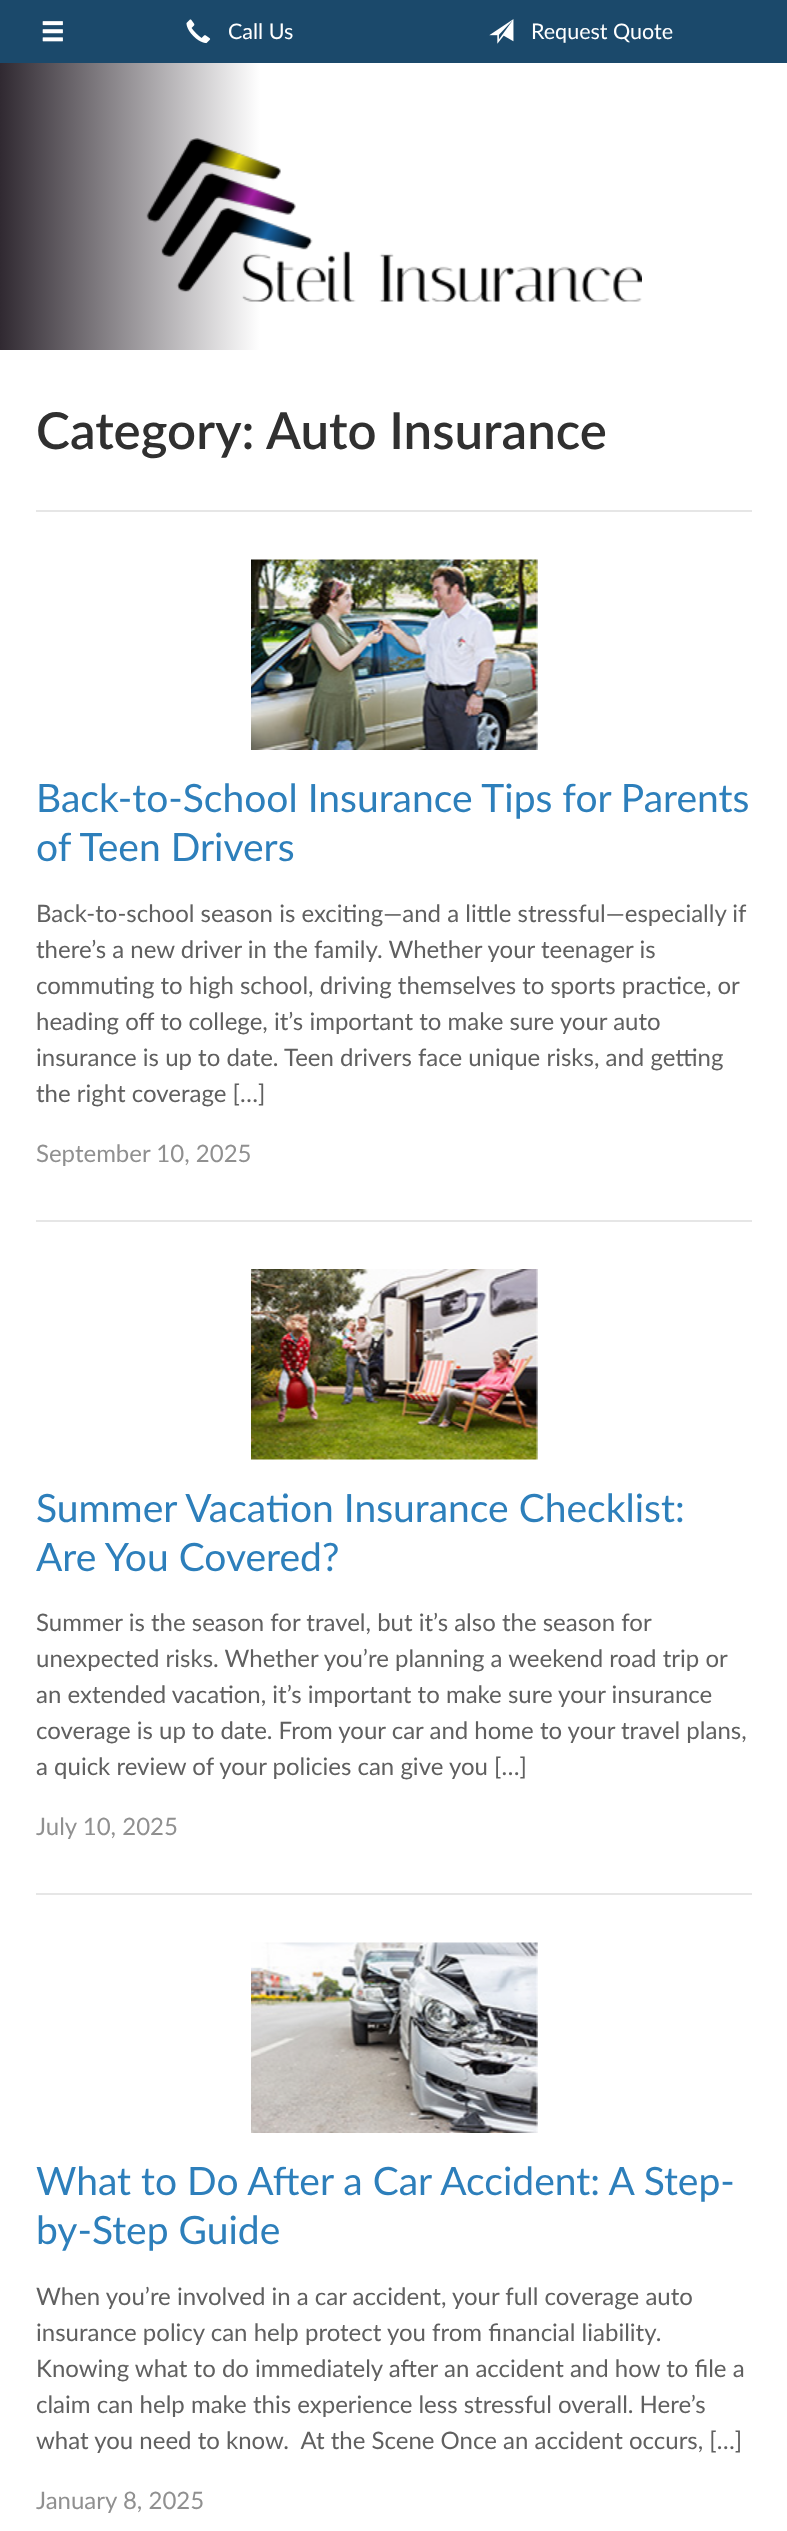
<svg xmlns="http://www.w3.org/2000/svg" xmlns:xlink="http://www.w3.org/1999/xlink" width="787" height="2531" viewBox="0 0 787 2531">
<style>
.cls-1{font:21.5px Lato;fill:#ffffff}
.cls-2{font:600 51px Lato;fill:#303030}
.cls-3{font:39px Lato;fill:#2d7fbb}
.cls-4{font:24px Lato;fill:#606060}
.cls-5{font:24px Lato;fill:#909090}
</style>
<defs>
<linearGradient id="g1" gradientUnits="userSpaceOnUse" x1="0" y1="206" x2="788" y2="206"><stop offset="0" stop-color="#302931"/><stop offset="0.33" stop-color="#ffffff"/><stop offset="1" stop-color="#ffffff"/></linearGradient>
</defs>
<rect width="100%" height="100%" fill="#1b496b"/>
<image xlink:href="image0.png" x="42" y="21" width="21" height="21"/>
<image xlink:href="image1.png" x="186" y="19" width="25" height="25"/>
<image xlink:href="image2.png" x="489" y="19" width="25" height="25"/>
<rect fill="url(#g1)" x="0" y="63" width="787" height="287"/>
<image xlink:href="image3.png" x="146" y="138" width="496" height="164"/>
<rect fill="#ffffff" x="0" y="350" width="787" height="2181"/>
<rect fill="#e6e6e6" x="36" y="510" width="716" height="2"/>
<rect fill="#e6e6e6" x="36" y="1220" width="716" height="2"/>
<image xlink:href="image4.png" x="251" y="559" width="287" height="191"/>
<rect fill="#e6e6e6" x="36" y="1893" width="716" height="2"/>
<image xlink:href="image5.png" x="251" y="1269" width="287" height="191"/>
<image xlink:href="image6.png" x="251" y="1942" width="287" height="191"/>
<text class="cls-1" x="228" y="39">Call Us</text>
<text class="cls-1" x="531" y="39">Request Quote</text>
<text class="cls-2" x="36" y="449">Category:</text>
<text class="cls-2" x="266" y="449">Auto Insurance</text>
<text class="cls-3"><tspan x="36" y="812">Back-to-School Insurance Tips for Parents</tspan><tspan x="36" y="861">of Teen Drivers</tspan></text>
<text class="cls-4"><tspan x="36" y="922">Back-to-school season is exciting—and a little stressful—especially if</tspan><tspan x="36" y="958">there’s a new driver in the family. Whether your teenager is</tspan><tspan x="36" y="994">commuting to high school, driving themselves to sports practice, or</tspan><tspan x="36" y="1030">heading off to college, it’s important to make sure your auto</tspan><tspan x="36" y="1066">insurance is up to date. Teen drivers face unique risks, and getting</tspan><tspan x="36" y="1102">the right coverage […]</tspan></text>
<text class="cls-5" x="36" y="1162">September 10, 2025</text>
<text class="cls-3"><tspan x="36" y="1522">Summer Vacation Insurance Checklist:</tspan><tspan x="36" y="1571">Are You Covered?</tspan></text>
<text class="cls-4"><tspan x="36" y="1631">Summer is the season for travel, but it’s also the season for</tspan><tspan x="36" y="1667">unexpected risks. Whether you’re planning a weekend road trip or</tspan><tspan x="36" y="1703">an extended vacation, it’s important to make sure your insurance</tspan><tspan x="36" y="1739">coverage is up to date. From your car and home to your travel plans,</tspan><tspan x="36" y="1775">a quick review of your policies can give you […]</tspan></text>
<text class="cls-5" x="36" y="1835">July 10, 2025</text>
<text class="cls-3"><tspan x="36" y="2195">What to Do After a Car Accident: A Step-</tspan><tspan x="36" y="2244">by-Step Guide</tspan></text>
<text class="cls-4" xml:space="preserve"><tspan x="36" y="2305">When you’re involved in a car accident, your full coverage auto</tspan><tspan x="36" y="2341">insurance policy can help protect you from financial liability.</tspan><tspan x="36" y="2377">Knowing what to do immediately after an accident and how to file a</tspan><tspan x="36" y="2413">claim can help make this experience less stressful overall. Here’s</tspan><tspan x="36" y="2449">what you need to know.  At the Scene Once an accident occurs, […]</tspan></text>
<text class="cls-5" x="36" y="2509">January 8, 2025</text>
</svg>
